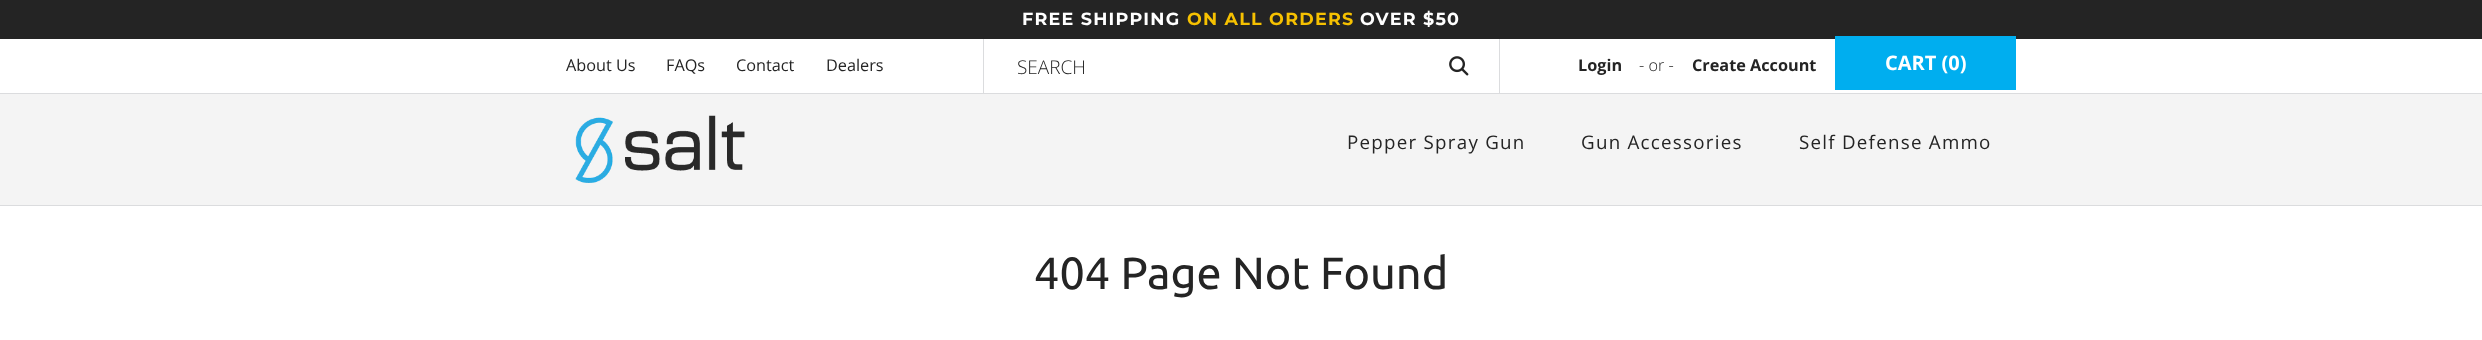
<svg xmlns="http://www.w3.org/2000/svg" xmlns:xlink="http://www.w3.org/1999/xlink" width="2482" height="340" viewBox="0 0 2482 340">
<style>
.cls-1{font:bold 17.5px Montserrat;letter-spacing:1.25px;fill:#ffffff}
.cls-2{font:bold 17.5px Montserrat;letter-spacing:1.25px;fill:#f6c101}
.cls-3{font:16.25px Open Sans;fill:#242424}
.cls-4{font:300 19px Open Sans;fill:#242424}
.cls-5{font:bold 16.25px Open Sans;fill:#242424}
.cls-6{font:300 16.25px Open Sans;fill:#242424}
.cls-7{font:bold 20px Open Sans;fill:#ffffff}
.cls-8{font:18.75px Open Sans;letter-spacing:1.25px;fill:#242424}
.cls-9{font:45px Ubuntu;fill:#242424}
</style>
<rect width="100%" height="100%" fill="#ffffff"/>
<rect fill="#f4f4f4" x="0" y="94" width="2482" height="111"/>
<rect fill="#242424" x="0" y="0" width="2482" height="39"/>
<rect fill="#dbdcde" x="0" y="93" width="2482" height="1"/>
<rect fill="#dbdcde" x="1499" y="39" width="1" height="54"/>
<rect fill="#dbdcde" x="983" y="39" width="1" height="54"/>
<image xlink:href="image0.png" x="1449" y="56" width="20" height="20"/>
<rect fill="#00aeef" x="1835" y="36" width="181" height="54"/>
<rect fill="#dbdcde" x="0" y="205" width="2482" height="1"/>
<image xlink:href="image1.png" x="575" y="115" width="170" height="68"/>
<text class="cls-1" x="1022" y="25">FREE SHIPPING</text>
<text class="cls-2" x="1187" y="25">ON ALL ORDERS</text>
<text class="cls-1" x="1360" y="25">OVER $50</text>
<text class="cls-3" x="566" y="71">About Us</text>
<text class="cls-3" x="666" y="71">FAQs</text>
<text class="cls-3" x="736" y="71">Contact</text>
<text class="cls-3" x="826" y="71">Dealers</text>
<text class="cls-4" x="1017" y="74">SEARCH</text>
<text class="cls-5" x="1578" y="71">Login</text>
<text class="cls-6" x="1639" y="71">- or -</text>
<text class="cls-5" x="1692" y="71">Create Account</text>
<text class="cls-7" x="1885" y="70">CART (0)</text>
<text class="cls-8" x="1347" y="149">Pepper Spray Gun</text>
<text class="cls-8" x="1581" y="149">Gun Accessories</text>
<text class="cls-8" x="1799" y="149">Self Defense Ammo</text>
<text class="cls-9" x="1034" y="289">404 Page Not Found</text>
</svg>
